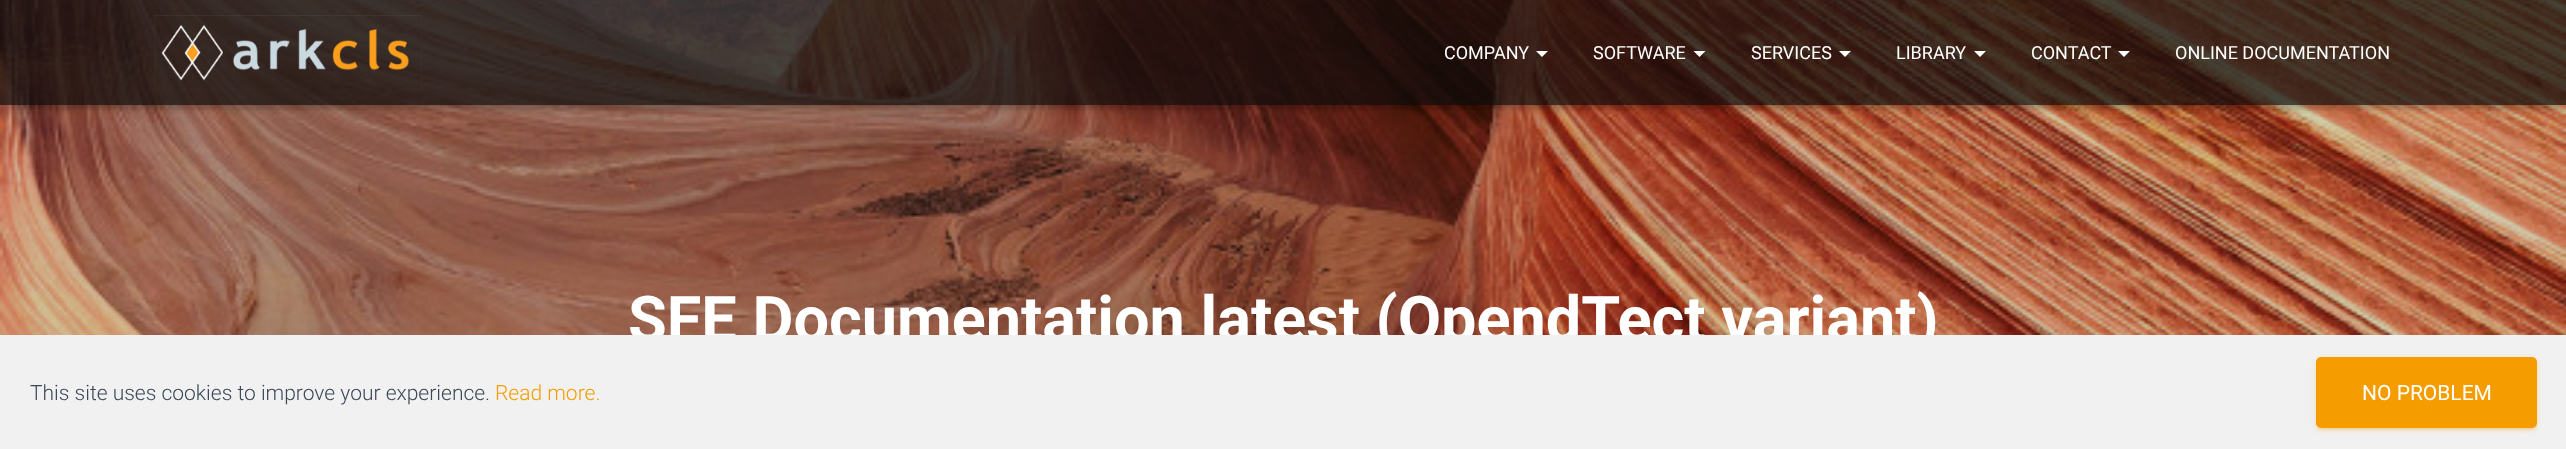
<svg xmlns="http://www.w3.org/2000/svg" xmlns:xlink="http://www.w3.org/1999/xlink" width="2566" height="449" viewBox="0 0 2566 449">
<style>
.cls-1{font:18px Roboto;fill:#ffffff}
.cls-2{font:bold 63px Roboto;fill:#ffffff}
.cls-3{font:300 21px Roboto;fill:#3c4858}
.cls-4{font:300 21px Roboto;fill:#f59c00}
.cls-5{font:21px Roboto;fill:#ffffff}
</style>
<defs>
<clipPath id="clip1"><rect x="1" y="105" width="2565" height="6"/></clipPath>
<clipPath id="clip2"><rect x="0" y="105" width="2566" height="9"/></clipPath>
<clipPath id="clip3"><rect x="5" y="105" width="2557" height="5"/></clipPath>
</defs>
<rect width="100%" height="100%" fill="#ffffff"/>
<image xlink:href="image1.png" x="0" y="0" width="2566" height="335"/>
<g clip-path="url(#clip1)">
<rect fill="#000000" fill-opacity="0.1" filter="blur(4px)" x="3" y="9" width="2561" height="99"/>
</g>
<g clip-path="url(#clip2)">
<rect fill="#000000" fill-opacity="0.12" filter="blur(7.5px)" x="0" y="2" width="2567" height="105"/>
</g>
<g clip-path="url(#clip3)">
<rect fill="#000000" fill-opacity="0.42" filter="blur(7.5px)" x="9" y="11" width="2549" height="87"/>
</g>
<rect fill="#0a0a0a" fill-opacity="0.7" x="0" y="0" width="2566" height="105"/>
<image xlink:href="image0.png" x="154" y="15" width="268" height="75"/>
<path fill="#ffffff" d="M1536 51H1548L1542 57Z"/>
<path fill="#ffffff" d="M1693.5 51H1705.5L1699.5 57Z"/>
<path fill="#ffffff" d="M1839 51H1851L1845 57Z"/>
<path fill="#ffffff" d="M1974 51H1986L1980 57Z"/>
<path fill="#ffffff" d="M2118 51H2130L2124 57Z"/>
<text class="cls-1" x="1444" y="59">COMPANY</text>
<text class="cls-1" x="1593" y="59">SOFTWARE</text>
<text class="cls-1" x="1751" y="59">SERVICES</text>
<text class="cls-1" x="1896" y="59">LIBRARY</text>
<text class="cls-1" x="2031" y="59">CONTACT</text>
<text class="cls-1" x="2175" y="59">ONLINE DOCUMENTATION</text>
<text class="cls-2" x="628" y="341">SFE Documentation latest (OpendTect variant)</text>
<rect fill="#f1f1f1" x="0" y="335" width="2566" height="114"/>
<text class="cls-3" x="30" y="400">This site uses cookies to improve your experience.</text>
<text class="cls-4" x="495" y="400">Read more.</text>
<rect fill="#f59c00" fill-opacity="0.12" filter="blur(4px)" x="2316" y="359" width="221" height="70" rx="5"/>
<rect fill="#f59c00" fill-opacity="0.2" filter="blur(1px)" x="2319" y="365" width="215" height="64" rx="1.5"/>
<rect fill="#f59c00" fill-opacity="0.14" filter="blur(1.5px)" x="2316" y="360" width="221" height="71" rx="5"/>
<rect fill="#f59c00" x="2316" y="357" width="221" height="71" rx="5"/>
<text class="cls-5" x="2362" y="400">NO PROBLEM</text>
</svg>
